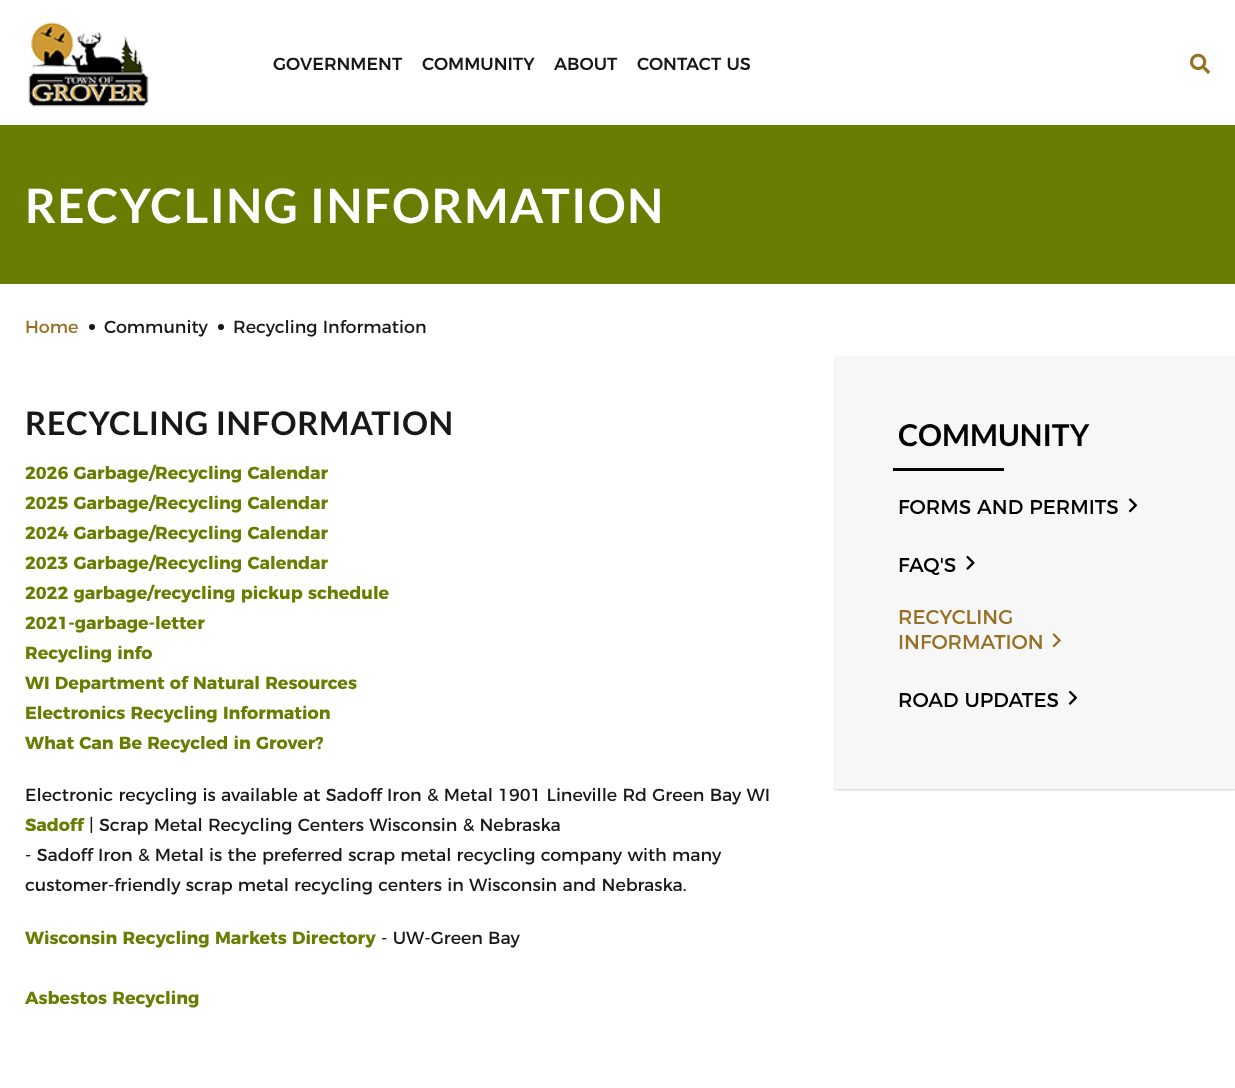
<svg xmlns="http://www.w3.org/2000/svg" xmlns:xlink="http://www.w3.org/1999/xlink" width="1235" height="1088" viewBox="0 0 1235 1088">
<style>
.cls-1{font:500 17.5px Montserrat;fill:#181818}
.cls-2{font:bold 47.5px Lato;letter-spacing:1.5px;fill:#ffffff}
.cls-3{font:17.5px Montserrat;fill:#977025}
.cls-4{font:17.5px Montserrat;fill:#181818}
.cls-5{font:bold 32.5px Lato;letter-spacing:0.6px;fill:#181818}
.cls-6{font:bold 17.5px Montserrat;fill:#697d02}
.cls-7{font:bold 30px Lato;fill:#000000}
.cls-8{font:20px Montserrat;fill:#000000}
.cls-9{font:20px Montserrat;fill:#977025}
</style>
<rect width="100%" height="100%" fill="#ffffff"/>
<image xlink:href="image0.png" x="28" y="22" width="121" height="85"/>
<image xlink:href="image1.png" x="1190" y="53" width="20" height="21"/>
<rect fill="#697d02" x="0" y="125" width="1235" height="159"/>
<circle fill="#181818" cx="92" cy="327" r="3"/>
<circle fill="#181818" cx="221" cy="327" r="3"/>
<rect fill="#000000" fill-opacity="0.2" filter="blur(1px)" x="835" y="358" width="400" height="432"/>
<rect fill="#f7f7f7" x="835" y="356" width="400" height="433"/>
<rect fill="#000000" x="893" y="468" width="111" height="3"/>
<image xlink:href="image2.png" x="1128" y="498" width="10" height="15"/>
<image xlink:href="image3.png" x="966" y="555" width="9" height="15"/>
<image xlink:href="image4.png" x="1052" y="633" width="9" height="15"/>
<image xlink:href="image5.png" x="1068" y="690" width="10" height="15"/>
<text class="cls-1" x="273" y="70">GOVERNMENT</text>
<text class="cls-1" x="422" y="70">COMMUNITY</text>
<text class="cls-1" x="554" y="70">ABOUT</text>
<text class="cls-1" x="637" y="70">CONTACT US</text>
<text class="cls-2" x="25" y="223">RECYCLING INFORMATION</text>
<text class="cls-3" x="25" y="333">Home</text>
<text class="cls-4" x="104" y="333">Community</text>
<text class="cls-4" x="233" y="333">Recycling Information</text>
<text class="cls-5" x="25" y="435">RECYCLING INFORMATION</text>
<text class="cls-6"><tspan x="25" y="479">2026 Garbage/Recycling Calendar</tspan><tspan x="25" y="509">2025 Garbage/Recycling Calendar</tspan><tspan x="25" y="539">2024 Garbage/Recycling Calendar</tspan><tspan x="25" y="569">2023 Garbage/Recycling Calendar</tspan><tspan x="25" y="599">2022 garbage/recycling pickup schedule</tspan><tspan x="25" y="629">2021-garbage-letter</tspan><tspan x="25" y="659">Recycling info</tspan><tspan x="25" y="689">WI Department of Natural Resources</tspan><tspan x="25" y="719">Electronics Recycling Information</tspan><tspan x="25" y="749">What Can Be Recycled in Grover?</tspan></text>
<text class="cls-4" x="25" y="801">Electronic recycling is available at Sadoff Iron &amp; Metal 1901 Lineville Rd Green Bay WI</text>
<text class="cls-6" x="25" y="831">Sadoff</text>
<text class="cls-4" x="89" y="831">| Scrap Metal Recycling Centers Wisconsin &amp; Nebraska</text>
<text class="cls-4"><tspan x="25" y="861">- Sadoff Iron &amp; Metal is the preferred scrap metal recycling company with many</tspan><tspan x="25" y="891">customer-friendly scrap metal recycling centers in Wisconsin and Nebraska.</tspan></text>
<text class="cls-6" x="25" y="944">Wisconsin Recycling Markets Directory</text>
<text class="cls-4" x="381" y="944">- UW-Green Bay</text>
<text class="cls-6" x="25" y="1004">Asbestos Recycling</text>
<text class="cls-7" x="898" y="446">COMMUNITY</text>
<text class="cls-8" x="898" y="514">FORMS AND PERMITS</text>
<text class="cls-8" x="898" y="572">FAQ'S</text>
<text class="cls-9"><tspan x="898" y="624">RECYCLING</tspan><tspan x="898" y="649">INFORMATION</tspan></text>
<text class="cls-8" x="898" y="707">ROAD UPDATES</text>
</svg>
